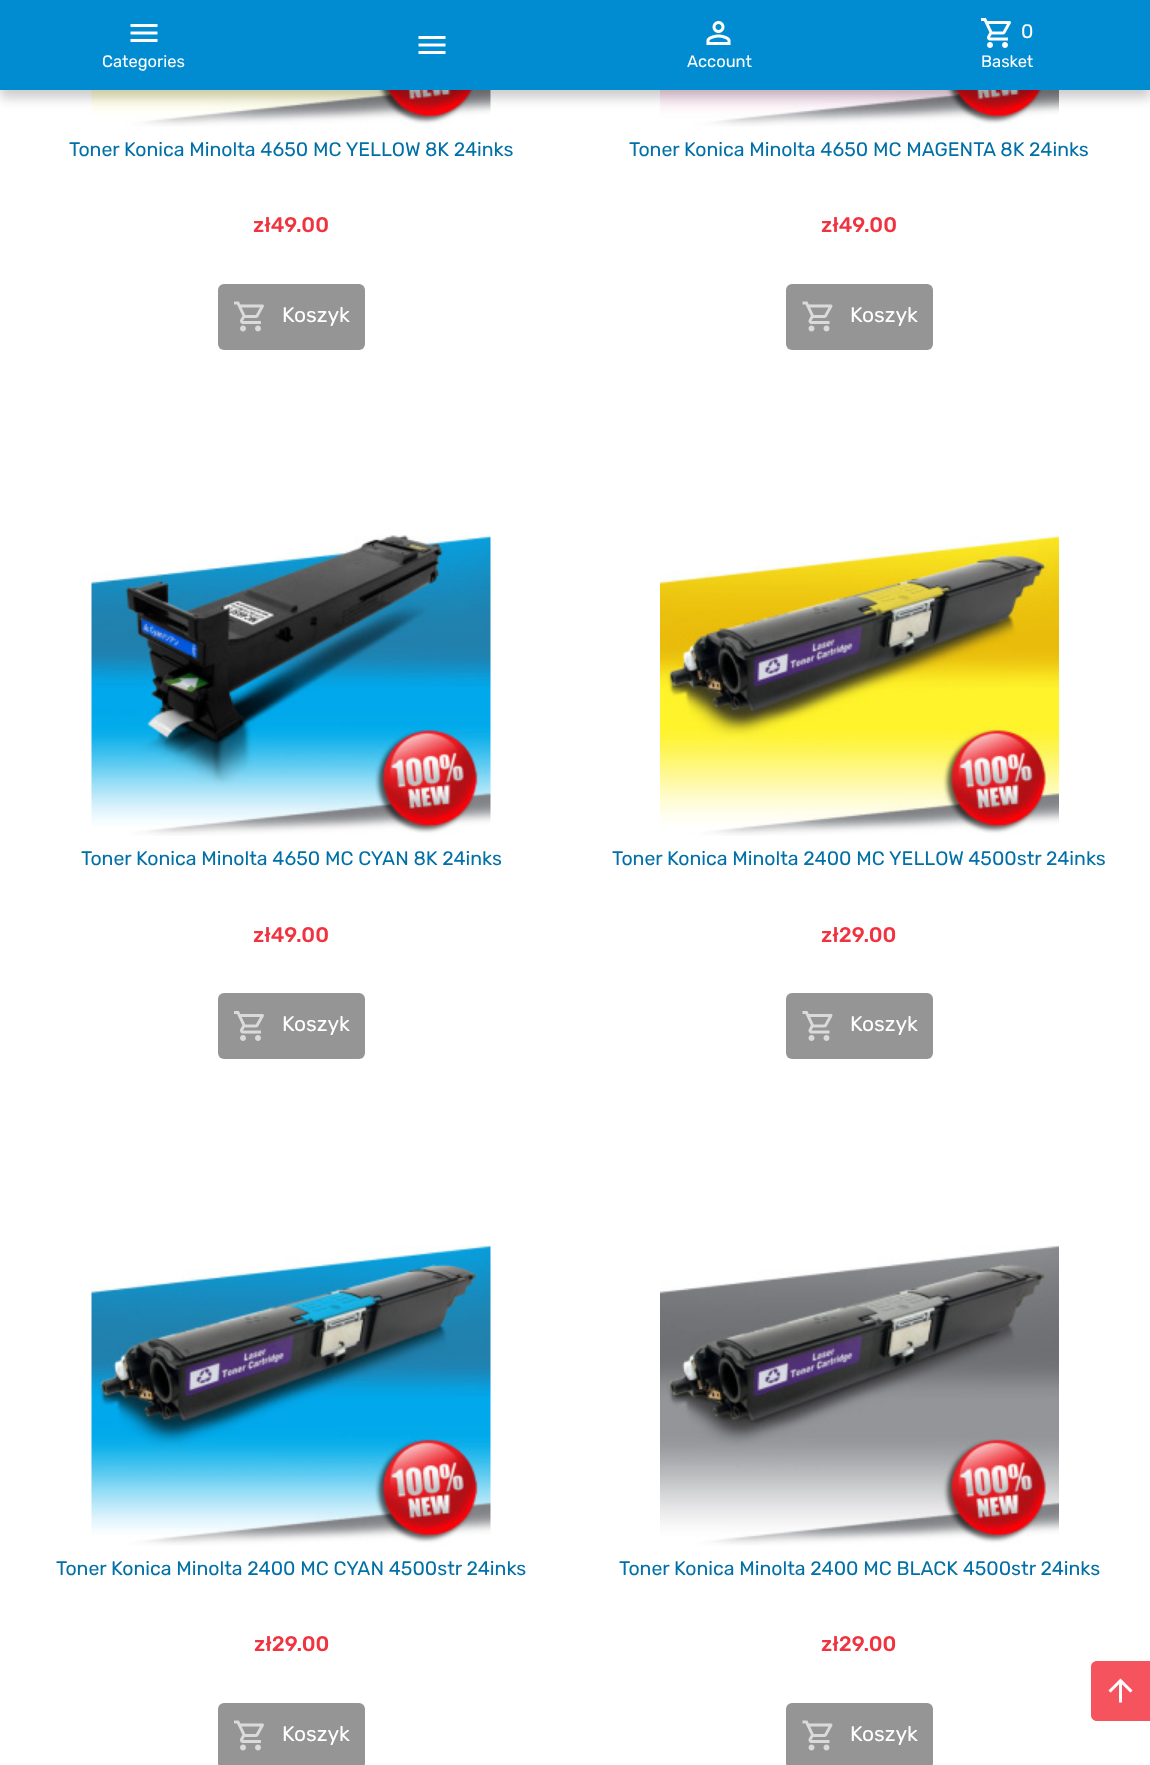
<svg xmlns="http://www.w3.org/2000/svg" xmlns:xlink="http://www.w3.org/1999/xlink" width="1150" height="1765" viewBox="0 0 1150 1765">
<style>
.cls-1{font:19.5px Rubik;fill:#ffffff}
.cls-2{font:16.5px Rubik;fill:#ffffff}
.cls-3{font:19.5px Rubik;fill:#0170a7}
.cls-4{font:500 21px Rubik;fill:#f13340}
.cls-5{font:21px Rubik;fill:#ffffff}
</style>
<rect width="100%" height="100%" fill="#ffffff"/>
<image xlink:href="image3.png" x="91" y="90" width="400" height="37"/>
<image xlink:href="image5.png" x="660" y="90" width="399" height="37"/>
<rect fill="#000000" fill-opacity="0.2" filter="blur(6px)" x="0" y="8" width="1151" height="90"/>
<rect fill="#018cd1" x="0" y="0" width="1150" height="90"/>
<image xlink:href="image0.png" x="418" y="36" width="28" height="18"/>
<image xlink:href="image1.png" x="980" y="18" width="31" height="30"/>
<image xlink:href="image0.png" x="130" y="24" width="28" height="18"/>
<image xlink:href="image2.png" x="706" y="21" width="25" height="24"/>
<rect fill="#969595" x="218" y="284" width="147" height="66" rx="6"/>
<image xlink:href="image4.png" x="234" y="301" width="30" height="31"/>
<rect fill="#969595" x="786" y="284" width="147" height="66" rx="6"/>
<image xlink:href="image6.png" x="802" y="301" width="31" height="31"/>
<image xlink:href="image7.png" x="91" y="535" width="400" height="301"/>
<rect fill="#969595" x="218" y="993" width="147" height="66" rx="6"/>
<image xlink:href="image8.png" x="234" y="1011" width="30" height="30"/>
<image xlink:href="image9.png" x="660" y="535" width="399" height="301"/>
<rect fill="#969595" x="786" y="993" width="147" height="66" rx="6"/>
<image xlink:href="image10.png" x="802" y="1011" width="31" height="30"/>
<image xlink:href="image11.png" x="91" y="1245" width="400" height="301"/>
<rect fill="#969595" x="218" y="1703" width="147" height="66" rx="6"/>
<image xlink:href="image4.png" x="234" y="1720" width="30" height="31"/>
<image xlink:href="image12.png" x="660" y="1245" width="399" height="301"/>
<rect fill="#969595" x="786" y="1703" width="147" height="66" rx="6"/>
<image xlink:href="image6.png" x="802" y="1720" width="31" height="31"/>
<path fill="#f5535e" d="M1097 1661H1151V1721H1097C1093.5 1721 1091 1718.5 1091 1715V1667C1091 1663.5 1093.5 1661 1097 1661Z"/>
<image xlink:href="image13.png" x="1108" y="1678" width="25" height="25"/>
<text class="cls-1" x="1021" y="38">0</text>
<text class="cls-2" x="981" y="67">Basket</text>
<text class="cls-2" x="102" y="67">Categories</text>
<text class="cls-2" x="687" y="67">Account</text>
<text class="cls-3" x="69" y="156">Toner Konica Minolta 4650 MC YELLOW 8K 24inks</text>
<text class="cls-4" x="253" y="232">zł49.00</text>
<text class="cls-5" x="282" y="322">Koszyk</text>
<text class="cls-3" x="629" y="156">Toner Konica Minolta 4650 MC MAGENTA 8K 24inks</text>
<text class="cls-4" x="821" y="232">zł49.00</text>
<text class="cls-5" x="850" y="322">Koszyk</text>
<text class="cls-3" x="81" y="865">Toner Konica Minolta 4650 MC CYAN 8K 24inks</text>
<text class="cls-4" x="253" y="942">zł49.00</text>
<text class="cls-5" x="282" y="1031">Koszyk</text>
<text class="cls-3" x="612" y="865">Toner Konica Minolta 2400 MC YELLOW 4500str 24inks</text>
<text class="cls-4" x="821" y="942">zł29.00</text>
<text class="cls-5" x="850" y="1031">Koszyk</text>
<text class="cls-3" x="56" y="1575">Toner Konica Minolta 2400 MC CYAN 4500str 24inks</text>
<text class="cls-4" x="254" y="1651">zł29.00</text>
<text class="cls-5" x="282" y="1741">Koszyk</text>
<text class="cls-3" x="619" y="1575">Toner Konica Minolta 2400 MC BLACK 4500str 24inks</text>
<text class="cls-4" x="821" y="1651">zł29.00</text>
<text class="cls-5" x="850" y="1741">Koszyk</text>
</svg>
